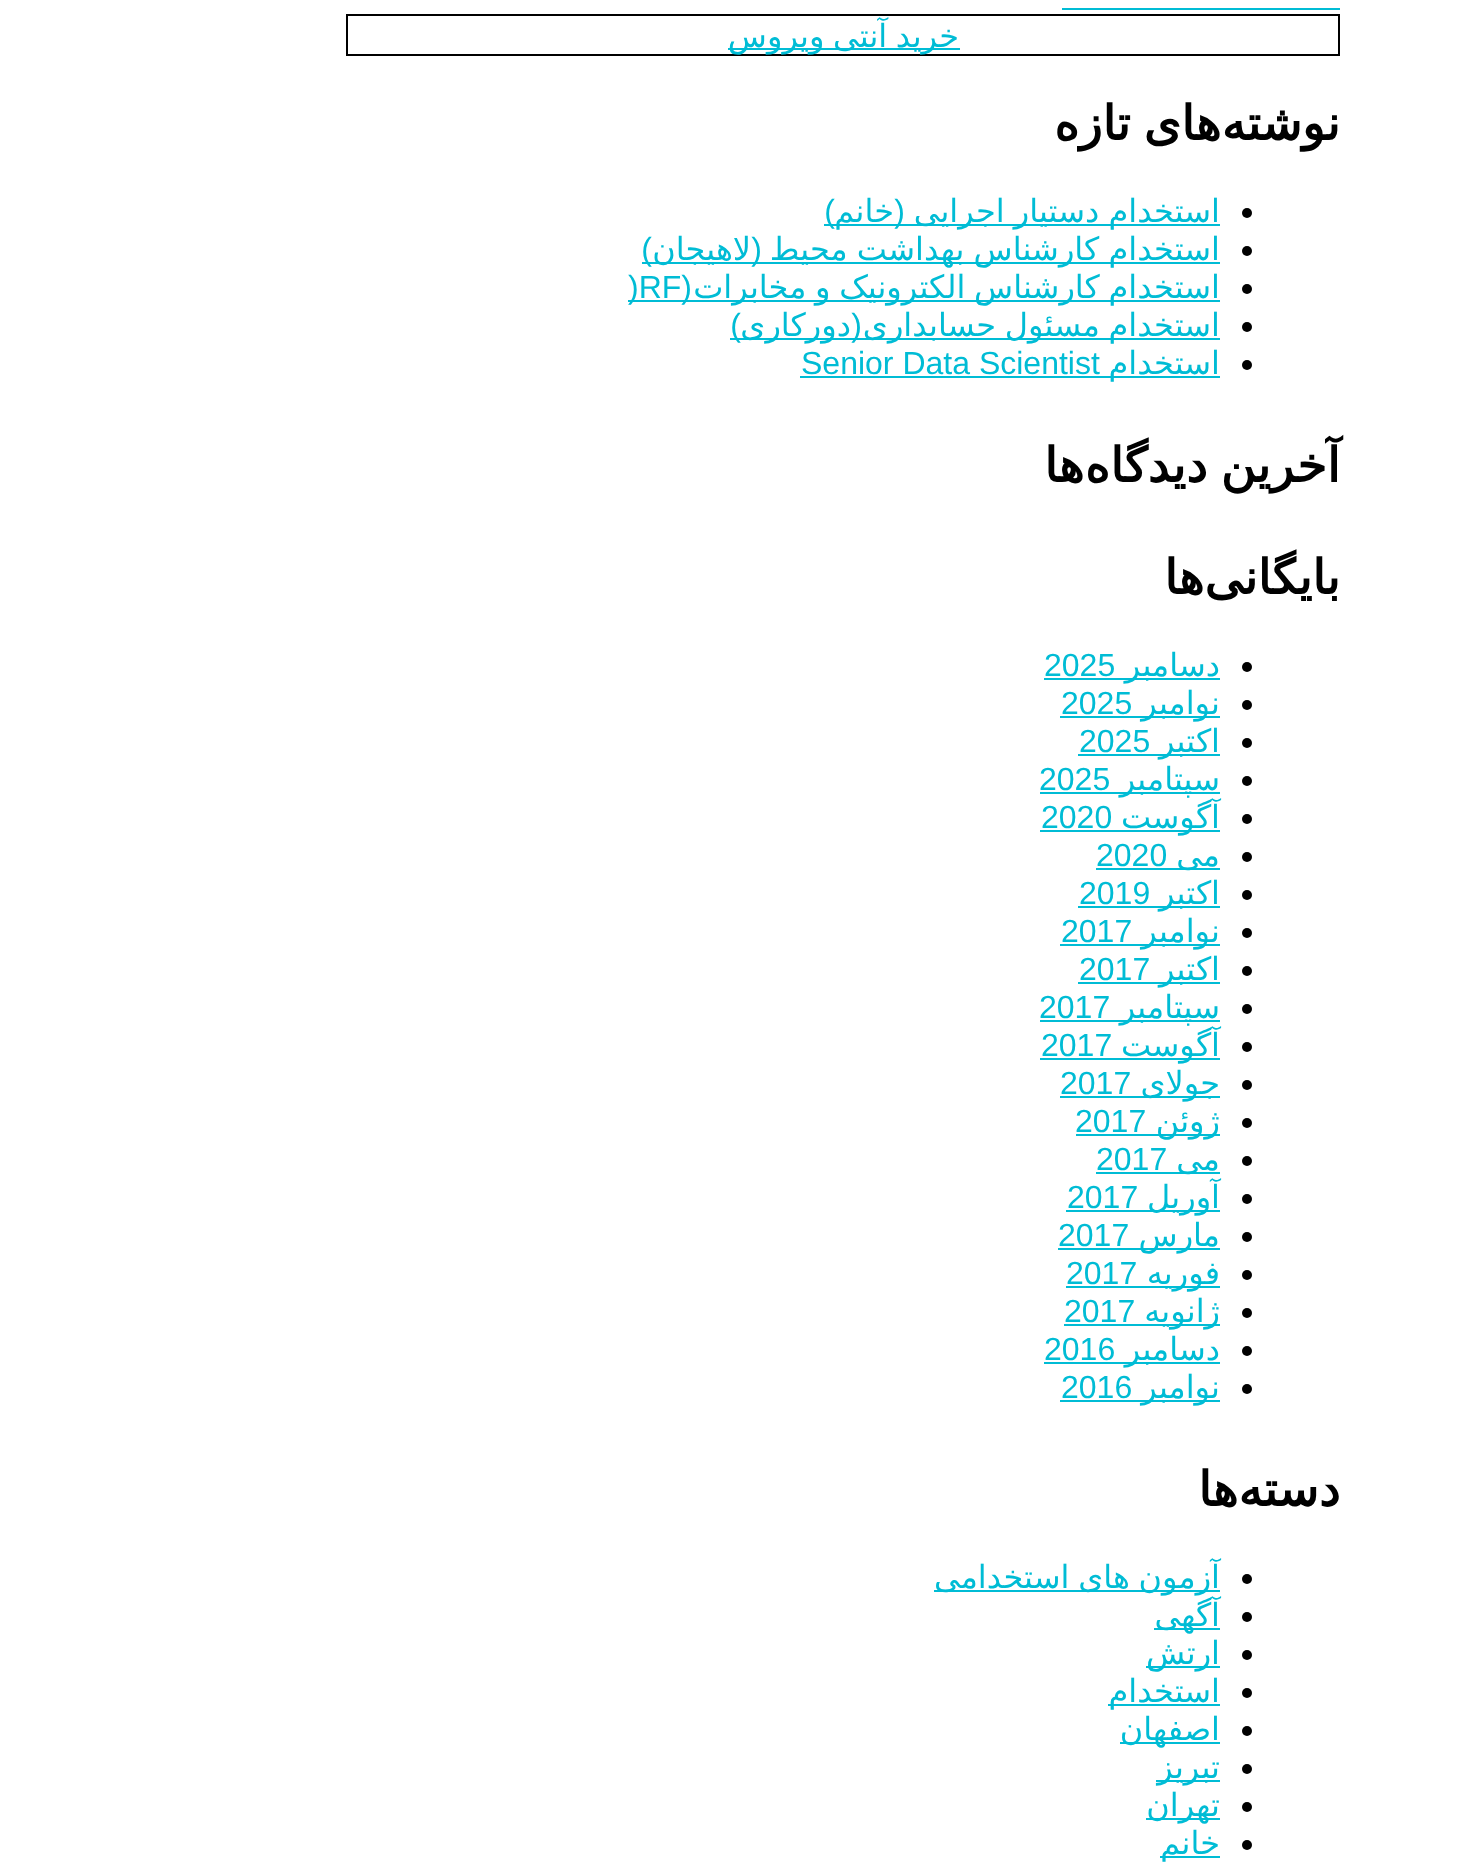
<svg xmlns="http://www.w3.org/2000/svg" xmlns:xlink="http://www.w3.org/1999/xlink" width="1466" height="1864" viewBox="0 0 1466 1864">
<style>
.cls-1{font:32px DejaVu Sans;direction:rtl;fill:#00bcd5}
.cls-2{font:bold 48px DejaVu Sans;direction:rtl;fill:#000000}
.cls-3{font:32px Liberation Sans;direction:rtl;fill:#00bcd5}
.cls-4{font:32px Liberation Sans;fill:#00bcd5}
</style>
<rect width="100%" height="100%" fill="#ffffff"/>
<rect fill="#00bcd5" x="1062" y="8" width="278" height="2"/>
<rect fill="none" stroke="#000000" stroke-width="2" x="347" y="15" width="992" height="40"/>
<rect fill="#00bcd5" x="728" y="48" width="232" height="2"/>
<circle fill="#000000" cx="1247" cy="213" r="5"/>
<rect fill="#00bcd5" x="824" y="224" width="396" height="2"/>
<circle fill="#000000" cx="1247" cy="251" r="5"/>
<rect fill="#00bcd5" x="642" y="262" width="578" height="2"/>
<circle fill="#000000" cx="1247" cy="289" r="5"/>
<rect fill="#00bcd5" x="628" y="300" width="592" height="2"/>
<circle fill="#000000" cx="1247" cy="327" r="5"/>
<rect fill="#00bcd5" x="730" y="338" width="490" height="2"/>
<circle fill="#000000" cx="1247" cy="365" r="5"/>
<rect fill="#00bcd5" x="800" y="376" width="420" height="2"/>
<circle fill="#000000" cx="1247" cy="667" r="5"/>
<rect fill="#00bcd5" x="1044" y="678" width="176" height="2"/>
<circle fill="#000000" cx="1247" cy="705" r="5"/>
<rect fill="#00bcd5" x="1060" y="716" width="160" height="2"/>
<circle fill="#000000" cx="1247" cy="743" r="5"/>
<rect fill="#00bcd5" x="1078" y="754" width="142" height="2"/>
<circle fill="#000000" cx="1247" cy="781" r="5"/>
<rect fill="#00bcd5" x="1040" y="792" width="180" height="2"/>
<circle fill="#000000" cx="1247" cy="819" r="5"/>
<rect fill="#00bcd5" x="1040" y="830" width="180" height="2"/>
<circle fill="#000000" cx="1247" cy="857" r="5"/>
<rect fill="#00bcd5" x="1096" y="868" width="124" height="2"/>
<circle fill="#000000" cx="1247" cy="895" r="5"/>
<rect fill="#00bcd5" x="1078" y="906" width="142" height="2"/>
<circle fill="#000000" cx="1247" cy="933" r="5"/>
<rect fill="#00bcd5" x="1060" y="944" width="160" height="2"/>
<circle fill="#000000" cx="1247" cy="971" r="5"/>
<rect fill="#00bcd5" x="1078" y="982" width="142" height="2"/>
<circle fill="#000000" cx="1247" cy="1009" r="5"/>
<rect fill="#00bcd5" x="1040" y="1020" width="180" height="2"/>
<circle fill="#000000" cx="1247" cy="1047" r="5"/>
<rect fill="#00bcd5" x="1040" y="1058" width="180" height="2"/>
<circle fill="#000000" cx="1247" cy="1085" r="5"/>
<rect fill="#00bcd5" x="1060" y="1096" width="160" height="2"/>
<circle fill="#000000" cx="1247" cy="1123" r="5"/>
<rect fill="#00bcd5" x="1076" y="1134" width="144" height="2"/>
<circle fill="#000000" cx="1247" cy="1161" r="5"/>
<rect fill="#00bcd5" x="1096" y="1172" width="124" height="2"/>
<circle fill="#000000" cx="1247" cy="1199" r="5"/>
<rect fill="#00bcd5" x="1066" y="1210" width="154" height="2"/>
<circle fill="#000000" cx="1247" cy="1237" r="5"/>
<rect fill="#00bcd5" x="1058" y="1248" width="162" height="2"/>
<circle fill="#000000" cx="1247" cy="1275" r="5"/>
<rect fill="#00bcd5" x="1066" y="1286" width="154" height="2"/>
<circle fill="#000000" cx="1247" cy="1313" r="5"/>
<rect fill="#00bcd5" x="1064" y="1324" width="156" height="2"/>
<circle fill="#000000" cx="1247" cy="1351" r="5"/>
<rect fill="#00bcd5" x="1044" y="1362" width="176" height="2"/>
<circle fill="#000000" cx="1247" cy="1389" r="5"/>
<rect fill="#00bcd5" x="1060" y="1400" width="160" height="2"/>
<circle fill="#000000" cx="1247" cy="1579" r="5"/>
<rect fill="#00bcd5" x="934" y="1590" width="286" height="2"/>
<circle fill="#000000" cx="1247" cy="1617" r="5"/>
<rect fill="#00bcd5" x="1154" y="1628" width="66" height="2"/>
<circle fill="#000000" cx="1247" cy="1655" r="5"/>
<rect fill="#00bcd5" x="1146" y="1666" width="74" height="2"/>
<circle fill="#000000" cx="1247" cy="1693" r="5"/>
<rect fill="#00bcd5" x="1108" y="1704" width="112" height="2"/>
<circle fill="#000000" cx="1247" cy="1731" r="5"/>
<rect fill="#00bcd5" x="1120" y="1742" width="100" height="2"/>
<circle fill="#000000" cx="1247" cy="1769" r="5"/>
<rect fill="#00bcd5" x="1156" y="1780" width="64" height="2"/>
<circle fill="#000000" cx="1247" cy="1807" r="5"/>
<rect fill="#00bcd5" x="1146" y="1818" width="74" height="2"/>
<circle fill="#000000" cx="1247" cy="1845" r="5"/>
<rect fill="#00bcd5" x="1160" y="1856" width="60" height="2"/>
<text class="cls-1" x="959" y="47" word-spacing="-1.5">خرید آنتی ویروس</text>
<text class="cls-2" x="1340" y="140">نوشته</text>
<text class="cls-2" x="1221" y="140" word-spacing="-2">های تازه</text>
<text class="cls-1" x="1220" y="222" word-spacing="-1">استخدام دستیار اجرایی</text>
<text class="cls-3" x="905" y="222">(</text>
<text class="cls-1" x="894" y="222">خانم</text>
<text class="cls-3" x="835" y="222">)</text>
<text class="cls-1" x="1220" y="260" word-spacing="-1">استخدام کارشناس بهداشت محیط</text>
<text class="cls-3" x="762" y="260">(</text>
<text class="cls-1" x="751" y="260">لاهیجان</text>
<text class="cls-3" x="652" y="260">)</text>
<text class="cls-1" x="1220" y="298" word-spacing="-1.5">استخدام کارشناس الکترونیک و مخابرات</text>
<text class="cls-3" x="692" y="298">(</text>
<text class="cls-4" x="628" y="298">)RF</text>
<text class="cls-1" x="1220" y="336" word-spacing="-1.5">استخدام مسئول حسابداری</text>
<text class="cls-3" x="862" y="336">(</text>
<text class="cls-1" x="851" y="336">دورکاری</text>
<text class="cls-3" x="741" y="336">)</text>
<text class="cls-1" x="1220" y="374">استخدام</text>
<text class="cls-4" x="801" y="374">Senior Data Scientist</text>
<text class="cls-2" x="1340" y="482" word-spacing="-2">آخرین دیدگاه</text>
<text class="cls-2" x="1084" y="482">ها</text>
<text class="cls-2" x="1340" y="594">بایگانی</text>
<text class="cls-2" x="1204" y="594">ها</text>
<text class="cls-1" x="1220" y="676">دسامبر</text>
<text class="cls-4" x="1044" y="676">2025</text>
<text class="cls-1" x="1220" y="714">نوامبر</text>
<text class="cls-4" x="1061" y="714">2025</text>
<text class="cls-1" x="1220" y="752">اکتبر</text>
<text class="cls-4" x="1079" y="752">2025</text>
<text class="cls-1" x="1220" y="790">سپتامبر</text>
<text class="cls-4" x="1039" y="790">2025</text>
<text class="cls-1" x="1220" y="828">آگوست</text>
<text class="cls-4" x="1041" y="828">2020</text>
<text class="cls-1" x="1220" y="866">می</text>
<text class="cls-4" x="1096" y="866">2020</text>
<text class="cls-1" x="1220" y="904">اکتبر</text>
<text class="cls-4" x="1079" y="904">2019</text>
<text class="cls-1" x="1220" y="942">نوامبر</text>
<text class="cls-4" x="1061" y="942">2017</text>
<text class="cls-1" x="1220" y="980">اکتبر</text>
<text class="cls-4" x="1079" y="980">2017</text>
<text class="cls-1" x="1220" y="1018">سپتامبر</text>
<text class="cls-4" x="1039" y="1018">2017</text>
<text class="cls-1" x="1220" y="1056">آگوست</text>
<text class="cls-4" x="1041" y="1056">2017</text>
<text class="cls-1" x="1220" y="1094">جولای</text>
<text class="cls-4" x="1060" y="1094">2017</text>
<text class="cls-1" x="1220" y="1132">ژوئن</text>
<text class="cls-4" x="1075" y="1132">2017</text>
<text class="cls-1" x="1220" y="1170">می</text>
<text class="cls-4" x="1096" y="1170">2017</text>
<text class="cls-1" x="1220" y="1208">آوریل</text>
<text class="cls-4" x="1067" y="1208">2017</text>
<text class="cls-1" x="1220" y="1246">مارس</text>
<text class="cls-4" x="1058" y="1246">2017</text>
<text class="cls-1" x="1220" y="1284">فوریه</text>
<text class="cls-4" x="1066" y="1284">2017</text>
<text class="cls-1" x="1220" y="1322">ژانویه</text>
<text class="cls-4" x="1064" y="1322">2017</text>
<text class="cls-1" x="1220" y="1360">دسامبر</text>
<text class="cls-4" x="1044" y="1360">2016</text>
<text class="cls-1" x="1220" y="1398">نوامبر</text>
<text class="cls-4" x="1061" y="1398">2016</text>
<text class="cls-2" x="1340" y="1506">دسته</text>
<text class="cls-2" x="1238" y="1506">ها</text>
<text class="cls-1"><tspan x="1220" y="1588" word-spacing="-1.5">آزمون های استخدامی</tspan><tspan x="1220" y="1626">آگهی</tspan><tspan x="1220" y="1664">ارتش</tspan><tspan x="1220" y="1702">استخدام</tspan><tspan x="1220" y="1740">اصفهان</tspan><tspan x="1220" y="1778">تبریز</tspan><tspan x="1220" y="1816">تهران</tspan><tspan x="1220" y="1854">خانم</tspan></text>
</svg>
